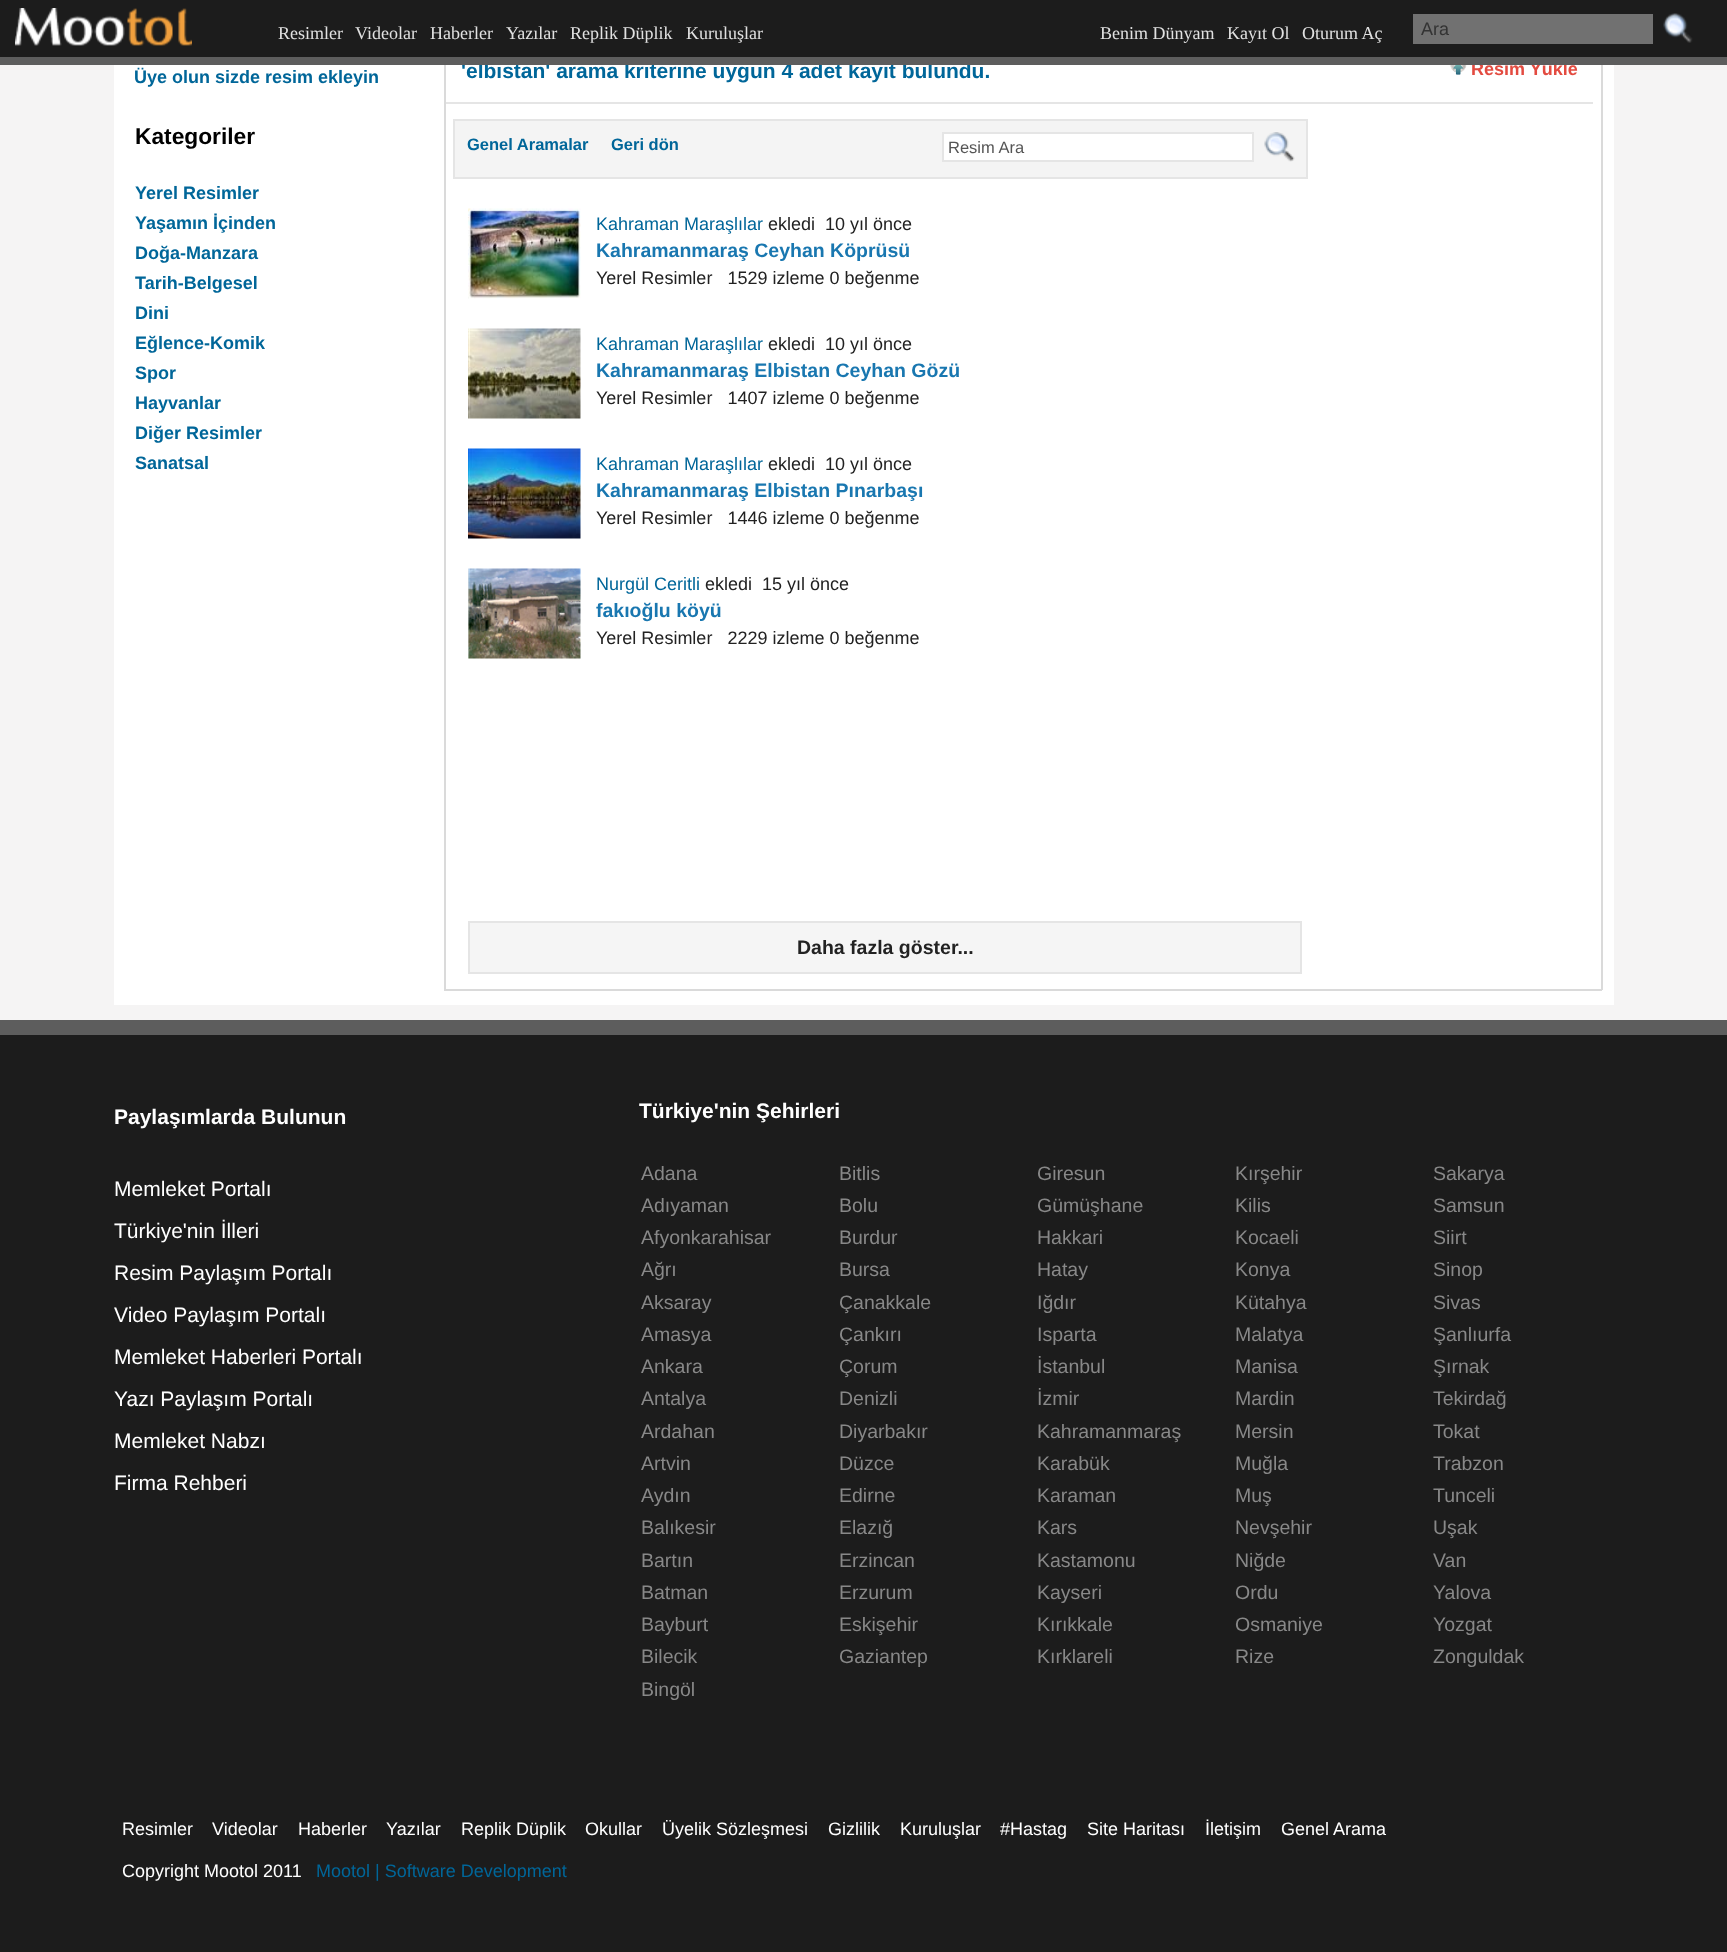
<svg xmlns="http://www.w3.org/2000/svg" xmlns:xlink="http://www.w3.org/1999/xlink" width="1727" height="1952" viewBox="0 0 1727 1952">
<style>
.cls-1{font:18px Liberation Serif;fill:#e1e1e1}
.cls-2{font:18px Liberation Sans;fill:#333333}
.cls-3{font:bold 18px Liberation Sans;fill:#006699}
.cls-4{font:bold 22.75px Liberation Sans;fill:#000000}
.cls-5{font:bold 21px Liberation Sans;fill:#006699}
.cls-6{font:bold 18px Liberation Sans;fill:#e34b40}
.cls-7{font:bold 16.5px Liberation Sans;fill:#006699}
.cls-8{font:16.5px Liberation Sans;fill:#555555}
.cls-9{font:18px Liberation Sans;fill:#006699}
.cls-10{font:18px Liberation Sans;fill:#222222}
.cls-11{font:bold 19.5px Liberation Sans;fill:#1977b0}
.cls-12{font:bold 19.5px Liberation Sans;fill:#222222}
.cls-13{font:bold 21px Liberation Sans;fill:#ffffff}
.cls-14{font:21px Liberation Sans;fill:#ffffff}
.cls-15{font:19.5px Liberation Sans;fill:#888888}
.cls-16{font:18px Liberation Sans;fill:#ffffff}
</style>
<rect width="100%" height="100%" fill="#f5f4f4"/>
<rect fill="#1c1c1c" x="0" y="0" width="1727" height="57"/>
<image xlink:href="image0.png" x="15" y="8" width="177" height="38"/>
<rect fill="#717171" x="1413" y="14" width="240" height="30"/>
<image xlink:href="image1.png" x="1663" y="13" width="30" height="30"/>
<rect fill="#ffffff" x="114" y="65" width="1500" height="940"/>
<rect fill="#dadada" x="1601" y="65" width="2" height="925"/>
<rect fill="#dadada" x="444" y="989" width="1158" height="2"/>
<rect fill="#dadada" x="444" y="65" width="2" height="925"/>
<rect fill="#e5e5e5" x="446" y="102" width="1147" height="2"/>
<image xlink:href="image2.png" x="1449" y="65" width="18" height="10"/>
<rect fill="#f4f4f4" stroke="#e5e5e5" stroke-width="2" x="454" y="120" width="853" height="58"/>
<rect fill="#ffffff" stroke="#e5e5e5" stroke-width="2" x="943" y="133" width="310" height="28"/>
<image xlink:href="image3.png" x="1264" y="132" width="31" height="30"/>
<image xlink:href="image4.png" x="468" y="208" width="113" height="91"/>
<image xlink:href="image5.png" x="468" y="328" width="113" height="91"/>
<image xlink:href="image6.png" x="468" y="448" width="113" height="91"/>
<image xlink:href="image7.png" x="468" y="568" width="113" height="91"/>
<rect fill="#f5f5f5" stroke="#e5e5e5" stroke-width="2" x="469" y="922" width="832" height="51"/>
<rect fill="#1c1c1c" x="0" y="1035" width="1727" height="917"/>
<rect fill="#5d5d5d" x="0" y="1020" width="1727" height="15"/>
<text class="cls-1" x="278" y="39">Resimler</text>
<text class="cls-1" x="355" y="39">Videolar</text>
<text class="cls-1" x="430" y="39">Haberler</text>
<text class="cls-1" x="506" y="39">Yazılar</text>
<text class="cls-1" x="570" y="39">Replik Düplik</text>
<text class="cls-1" x="686" y="39">Kuruluşlar</text>
<text class="cls-1" x="1100" y="39">Benim Dünyam</text>
<text class="cls-1" x="1227" y="39">Kayıt Ol</text>
<text class="cls-1" x="1302" y="39">Oturum Aç</text>
<text class="cls-2" x="1421" y="35">Ara</text>
<text class="cls-3" x="134" y="83">Üye olun sizde resim ekleyin</text>
<text class="cls-4" x="135" y="144">Kategoriler</text>
<text class="cls-3"><tspan x="135" y="199">Yerel Resimler</tspan><tspan x="135" y="229">Yaşamın İçinden</tspan><tspan x="135" y="259">Doğa-Manzara</tspan><tspan x="135" y="289">Tarih-Belgesel</tspan><tspan x="135" y="319">Dini</tspan><tspan x="135" y="349">Eğlence-Komik</tspan><tspan x="135" y="379">Spor</tspan><tspan x="135" y="409">Hayvanlar</tspan><tspan x="135" y="439">Diğer Resimler</tspan><tspan x="135" y="469">Sanatsal</tspan></text>
<text class="cls-5" x="461" y="78">'elbistan' arama kriterine uygun 4 adet kayıt bulundu.</text>
<text class="cls-6" x="1471" y="75">Resim Yükle</text>
<rect fill="#5d5d5d" x="0" y="57" width="1727" height="8"/>
<text class="cls-7" x="467" y="150">Genel Aramalar</text>
<text class="cls-7" x="611" y="150">Geri dön</text>
<text class="cls-8" x="948" y="153">Resim Ara</text>
<text class="cls-9" x="596" y="230">Kahraman Maraşlılar</text>
<text class="cls-10" x="768" y="230">ekledi</text>
<text class="cls-10" x="825" y="230">10 yıl önce</text>
<text class="cls-11" x="596" y="257">Kahramanmaraş Ceyhan Köprüsü</text>
<text class="cls-10" xml:space="preserve" x="596" y="284">Yerel Resimler   1529 izleme 0 beğenme</text>
<text class="cls-9" x="596" y="350">Kahraman Maraşlılar</text>
<text class="cls-10" x="768" y="350">ekledi</text>
<text class="cls-10" x="825" y="350">10 yıl önce</text>
<text class="cls-11" x="596" y="377">Kahramanmaraş Elbistan Ceyhan Gözü</text>
<text class="cls-10" xml:space="preserve" x="596" y="404">Yerel Resimler   1407 izleme 0 beğenme</text>
<text class="cls-9" x="596" y="470">Kahraman Maraşlılar</text>
<text class="cls-10" x="768" y="470">ekledi</text>
<text class="cls-10" x="825" y="470">10 yıl önce</text>
<text class="cls-11" x="596" y="497">Kahramanmaraş Elbistan Pınarbaşı</text>
<text class="cls-10" xml:space="preserve" x="596" y="524">Yerel Resimler   1446 izleme 0 beğenme</text>
<text class="cls-9" x="596" y="590">Nurgül Ceritli</text>
<text class="cls-10" x="705" y="590">ekledi</text>
<text class="cls-10" x="762" y="590">15 yıl önce</text>
<text class="cls-11" x="596" y="617">fakıoğlu köyü</text>
<text class="cls-10" xml:space="preserve" x="596" y="644">Yerel Resimler   2229 izleme 0 beğenme</text>
<text class="cls-12" x="797" y="954">Daha fazla göster...</text>
<text class="cls-13" x="114" y="1124">Paylaşımlarda Bulunun</text>
<text class="cls-14" x="114" y="1196">Memleket Portalı</text>
<text class="cls-14" x="114" y="1238">Türkiye'nin İlleri</text>
<text class="cls-14" x="114" y="1280">Resim Paylaşım Portalı</text>
<text class="cls-14" x="114" y="1322">Video Paylaşım Portalı</text>
<text class="cls-14" x="114" y="1364">Memleket Haberleri Portalı</text>
<text class="cls-14" x="114" y="1406">Yazı Paylaşım Portalı</text>
<text class="cls-14" x="114" y="1448">Memleket Nabzı</text>
<text class="cls-14" x="114" y="1490">Firma Rehberi</text>
<text class="cls-13" x="639" y="1118">Türkiye'nin Şehirleri</text>
<text class="cls-15" x="641" y="1180">Adana</text>
<text class="cls-15" x="839" y="1180">Bitlis</text>
<text class="cls-15" x="1037" y="1180">Giresun</text>
<text class="cls-15" x="1235" y="1180">Kırşehir</text>
<text class="cls-15" x="1433" y="1180">Sakarya</text>
<text class="cls-15" x="641" y="1212">Adıyaman</text>
<text class="cls-15" x="839" y="1212">Bolu</text>
<text class="cls-15" x="1037" y="1212">Gümüşhane</text>
<text class="cls-15" x="1235" y="1212">Kilis</text>
<text class="cls-15" x="1433" y="1212">Samsun</text>
<text class="cls-15" x="641" y="1244">Afyonkarahisar</text>
<text class="cls-15" x="839" y="1244">Burdur</text>
<text class="cls-15" x="1037" y="1244">Hakkari</text>
<text class="cls-15" x="1235" y="1244">Kocaeli</text>
<text class="cls-15" x="1433" y="1244">Siirt</text>
<text class="cls-15" x="641" y="1276">Ağrı</text>
<text class="cls-15" x="839" y="1276">Bursa</text>
<text class="cls-15" x="1037" y="1276">Hatay</text>
<text class="cls-15" x="1235" y="1276">Konya</text>
<text class="cls-15" x="1433" y="1276">Sinop</text>
<text class="cls-15" x="641" y="1309">Aksaray</text>
<text class="cls-15" x="839" y="1309">Çanakkale</text>
<text class="cls-15" x="1037" y="1309">Iğdır</text>
<text class="cls-15" x="1235" y="1309">Kütahya</text>
<text class="cls-15" x="1433" y="1309">Sivas</text>
<text class="cls-15" x="641" y="1341">Amasya</text>
<text class="cls-15" x="839" y="1341">Çankırı</text>
<text class="cls-15" x="1037" y="1341">Isparta</text>
<text class="cls-15" x="1235" y="1341">Malatya</text>
<text class="cls-15" x="1433" y="1341">Şanlıurfa</text>
<text class="cls-15" x="641" y="1373">Ankara</text>
<text class="cls-15" x="839" y="1373">Çorum</text>
<text class="cls-15" x="1037" y="1373">İstanbul</text>
<text class="cls-15" x="1235" y="1373">Manisa</text>
<text class="cls-15" x="1433" y="1373">Şırnak</text>
<text class="cls-15" x="641" y="1405">Antalya</text>
<text class="cls-15" x="839" y="1405">Denizli</text>
<text class="cls-15" x="1037" y="1405">İzmir</text>
<text class="cls-15" x="1235" y="1405">Mardin</text>
<text class="cls-15" x="1433" y="1405">Tekirdağ</text>
<text class="cls-15" x="641" y="1438">Ardahan</text>
<text class="cls-15" x="839" y="1438">Diyarbakır</text>
<text class="cls-15" x="1037" y="1438">Kahramanmaraş</text>
<text class="cls-15" x="1235" y="1438">Mersin</text>
<text class="cls-15" x="1433" y="1438">Tokat</text>
<text class="cls-15" x="641" y="1470">Artvin</text>
<text class="cls-15" x="839" y="1470">Düzce</text>
<text class="cls-15" x="1037" y="1470">Karabük</text>
<text class="cls-15" x="1235" y="1470">Muğla</text>
<text class="cls-15" x="1433" y="1470">Trabzon</text>
<text class="cls-15" x="641" y="1502">Aydın</text>
<text class="cls-15" x="839" y="1502">Edirne</text>
<text class="cls-15" x="1037" y="1502">Karaman</text>
<text class="cls-15" x="1235" y="1502">Muş</text>
<text class="cls-15" x="1433" y="1502">Tunceli</text>
<text class="cls-15" x="641" y="1534">Balıkesir</text>
<text class="cls-15" x="839" y="1534">Elazığ</text>
<text class="cls-15" x="1037" y="1534">Kars</text>
<text class="cls-15" x="1235" y="1534">Nevşehir</text>
<text class="cls-15" x="1433" y="1534">Uşak</text>
<text class="cls-15" x="641" y="1567">Bartın</text>
<text class="cls-15" x="839" y="1567">Erzincan</text>
<text class="cls-15" x="1037" y="1567">Kastamonu</text>
<text class="cls-15" x="1235" y="1567">Niğde</text>
<text class="cls-15" x="1433" y="1567">Van</text>
<text class="cls-15" x="641" y="1599">Batman</text>
<text class="cls-15" x="839" y="1599">Erzurum</text>
<text class="cls-15" x="1037" y="1599">Kayseri</text>
<text class="cls-15" x="1235" y="1599">Ordu</text>
<text class="cls-15" x="1433" y="1599">Yalova</text>
<text class="cls-15" x="641" y="1631">Bayburt</text>
<text class="cls-15" x="839" y="1631">Eskişehir</text>
<text class="cls-15" x="1037" y="1631">Kırıkkale</text>
<text class="cls-15" x="1235" y="1631">Osmaniye</text>
<text class="cls-15" x="1433" y="1631">Yozgat</text>
<text class="cls-15" x="641" y="1663">Bilecik</text>
<text class="cls-15" x="839" y="1663">Gaziantep</text>
<text class="cls-15" x="1037" y="1663">Kırklareli</text>
<text class="cls-15" x="1235" y="1663">Rize</text>
<text class="cls-15" x="1433" y="1663">Zonguldak</text>
<text class="cls-15" x="641" y="1696">Bingöl</text>
<text class="cls-16" x="122" y="1835">Resimler</text>
<text class="cls-16" x="212" y="1835">Videolar</text>
<text class="cls-16" x="298" y="1835">Haberler</text>
<text class="cls-16" x="386" y="1835">Yazılar</text>
<text class="cls-16" x="461" y="1835">Replik Düplik</text>
<text class="cls-16" x="585" y="1835">Okullar</text>
<text class="cls-16" x="662" y="1835">Üyelik Sözleşmesi</text>
<text class="cls-16" x="828" y="1835">Gizlilik</text>
<text class="cls-16" x="900" y="1835">Kuruluşlar</text>
<text class="cls-16" x="1000" y="1835">#Hastag</text>
<text class="cls-16" x="1087" y="1835">Site Haritası</text>
<text class="cls-16" x="1205" y="1835">İletişim</text>
<text class="cls-16" x="1281" y="1835">Genel Arama</text>
<text class="cls-16" x="122" y="1877">Copyright Mootol 2011</text>
<text class="cls-9" x="316" y="1877">Mootol | Software Development</text>
</svg>
